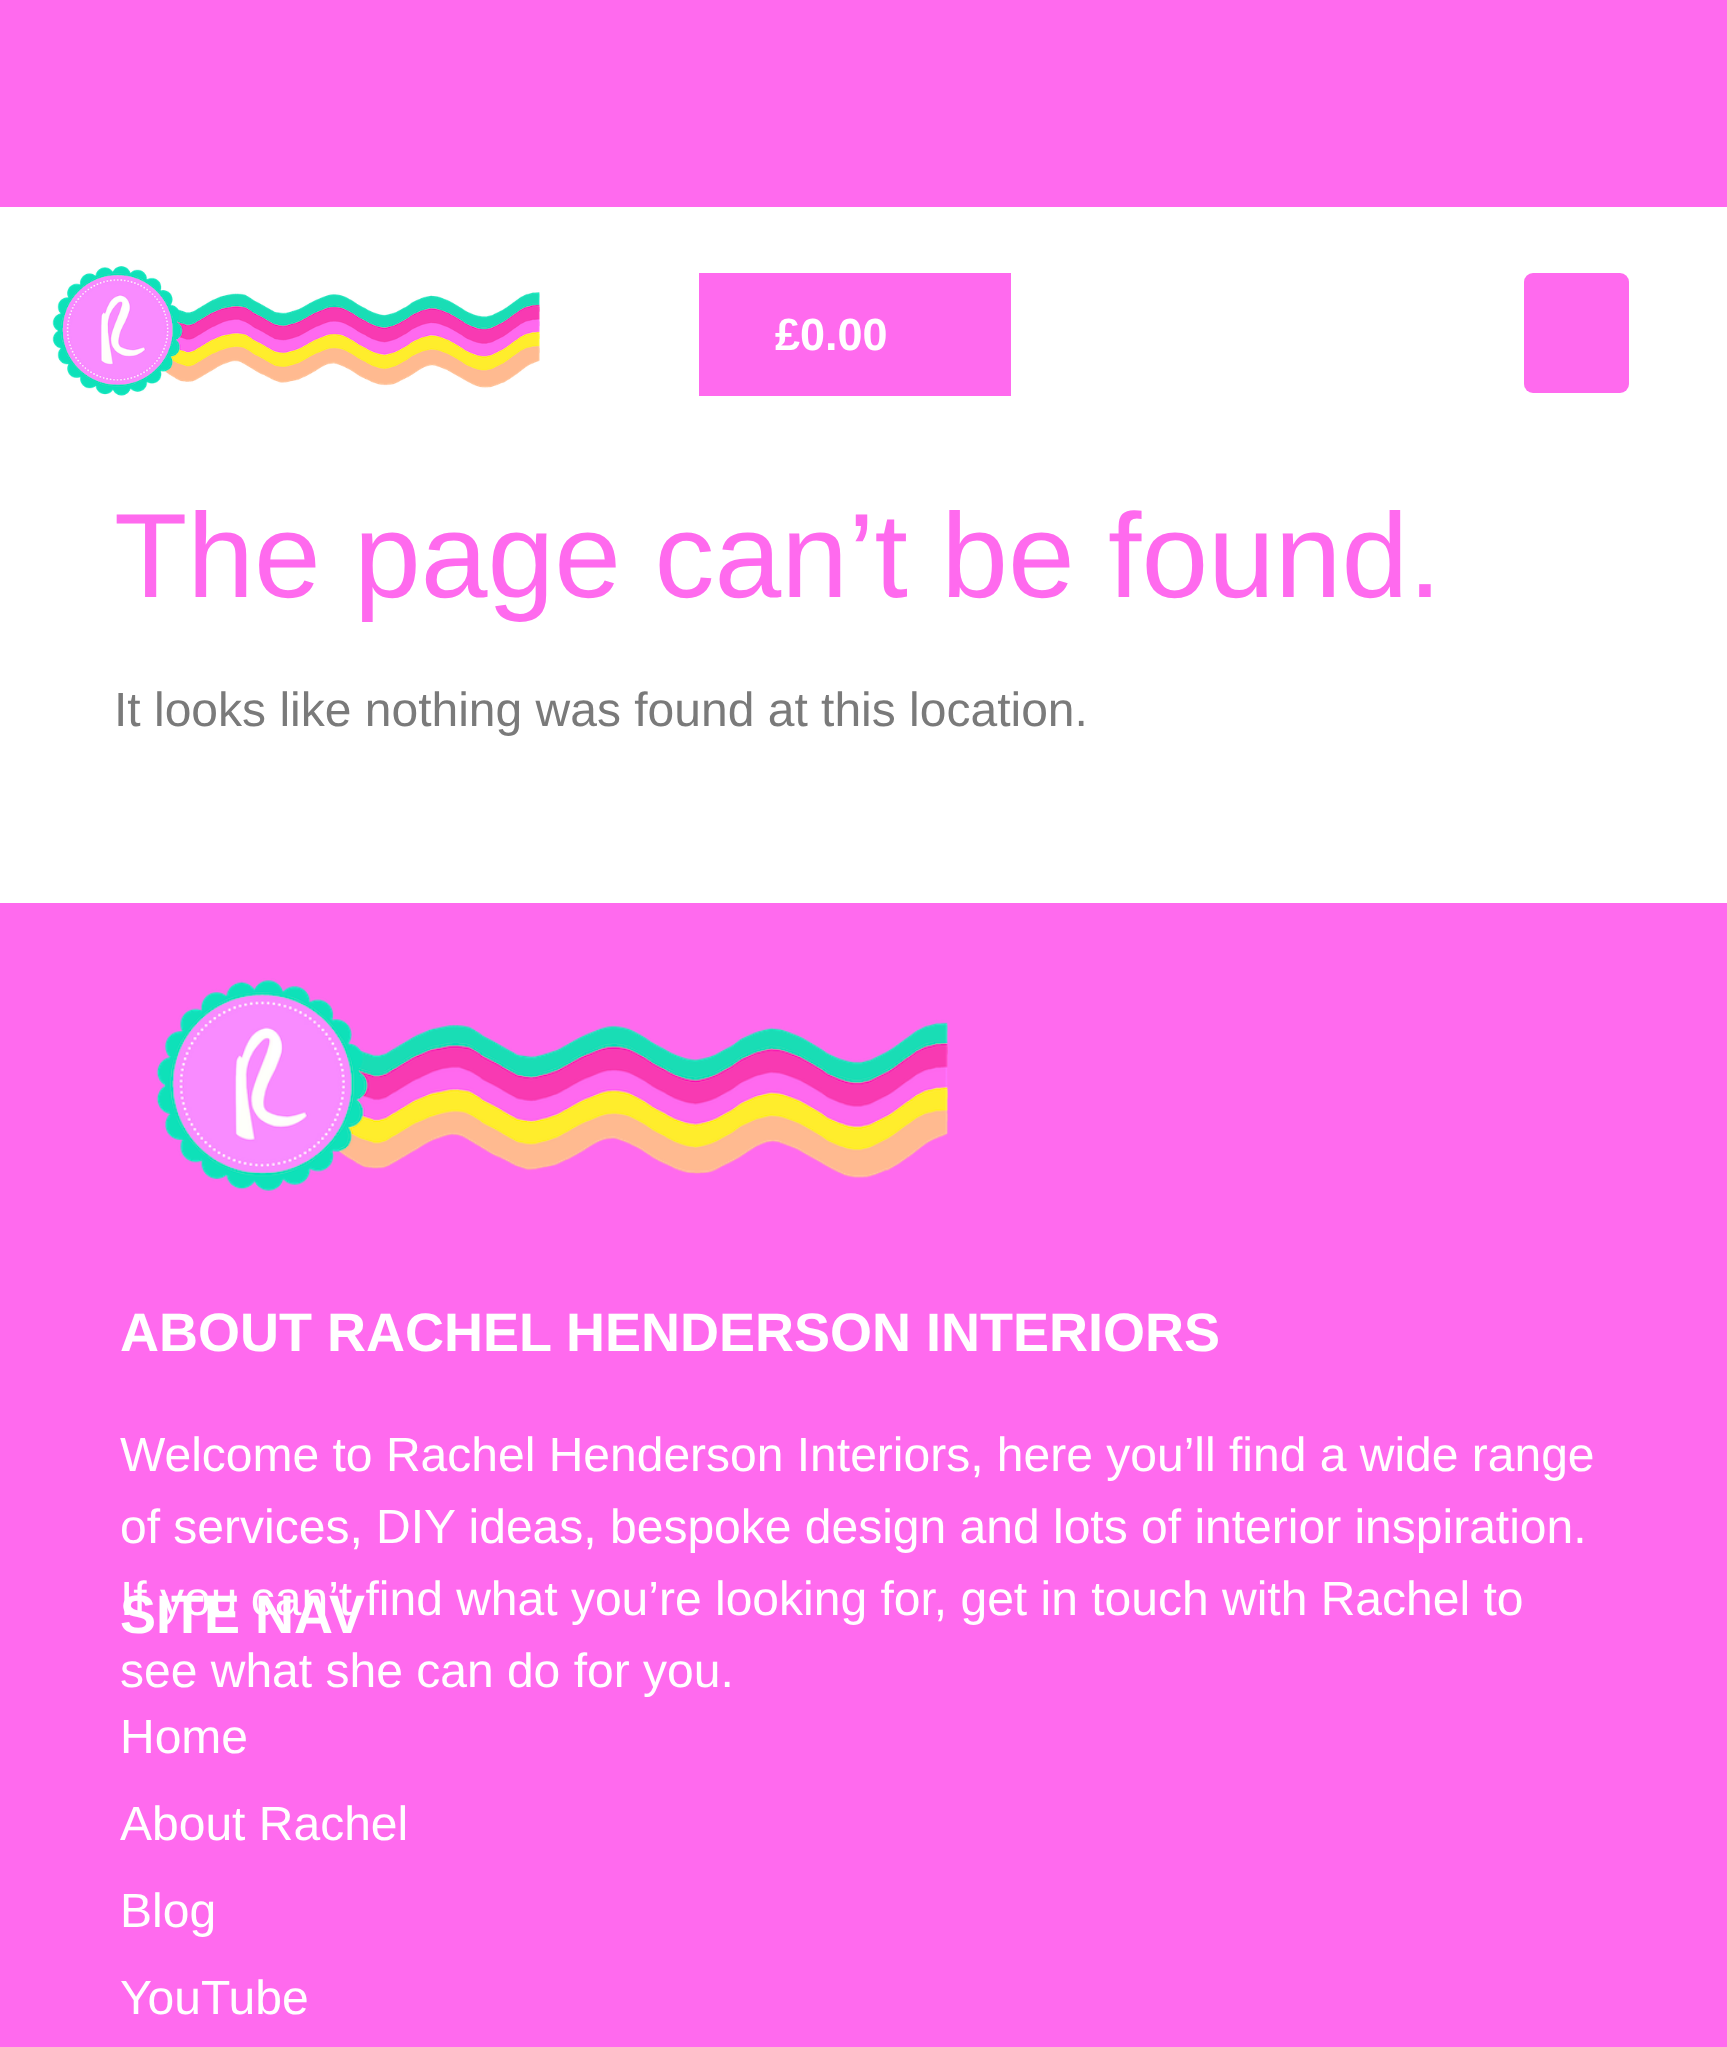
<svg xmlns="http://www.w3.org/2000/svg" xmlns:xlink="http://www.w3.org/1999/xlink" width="1727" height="2047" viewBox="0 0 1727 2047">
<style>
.cls-1{font:bold 45px Liberation Sans;fill:#ffffff}
.cls-2{font:120px Liberation Sans;fill:#ff6aee}
.cls-3{font:48px Liberation Sans;fill:#7a7a7a}
.cls-4{font:bold 54px Liberation Sans;fill:#ffffff}
.cls-5{font:48px Liberation Sans;fill:#ffffff}
</style>
<rect width="100%" height="100%" fill="#ffffff"/>
<rect fill="#ff6aee" x="0" y="0" width="1727" height="207"/>
<image xlink:href="image0.png" x="52" y="266" width="488" height="131"/>
<rect fill="#ff6aee" x="699" y="273" width="312" height="123"/>
<rect fill="#ff6aee" x="1524" y="273" width="105" height="120" rx="9"/>
<rect fill="#ff6aee" x="0" y="903" width="1727" height="1144"/>
<image xlink:href="image1.png" x="156" y="978" width="792" height="215"/>
<text class="cls-1" x="775" y="350">£0.00</text>
<text class="cls-2" x="114" y="597">The page can’t be found.</text>
<text class="cls-3" x="114" y="726">It looks like nothing was found at this location.</text>
<text class="cls-4" x="120" y="1351">ABOUT RACHEL HENDERSON INTERIORS</text>
<text class="cls-5"><tspan x="120" y="1471">Welcome to Rachel Henderson Interiors, here you’ll find a wide range</tspan><tspan x="120" y="1543">of services, DIY ideas, bespoke design and lots of interior inspiration.</tspan><tspan x="120" y="1615">If you can’t find what you’re looking for, get in touch with Rachel to</tspan><tspan x="120" y="1687">see what she can do for you.</tspan></text>
<text class="cls-4" x="120" y="1633">SITE NAV</text>
<text class="cls-5"><tspan x="120" y="1753">Home</tspan><tspan x="120" y="1840">About Rachel</tspan><tspan x="120" y="1927">Blog</tspan><tspan x="120" y="2014">YouTube</tspan></text>
</svg>
